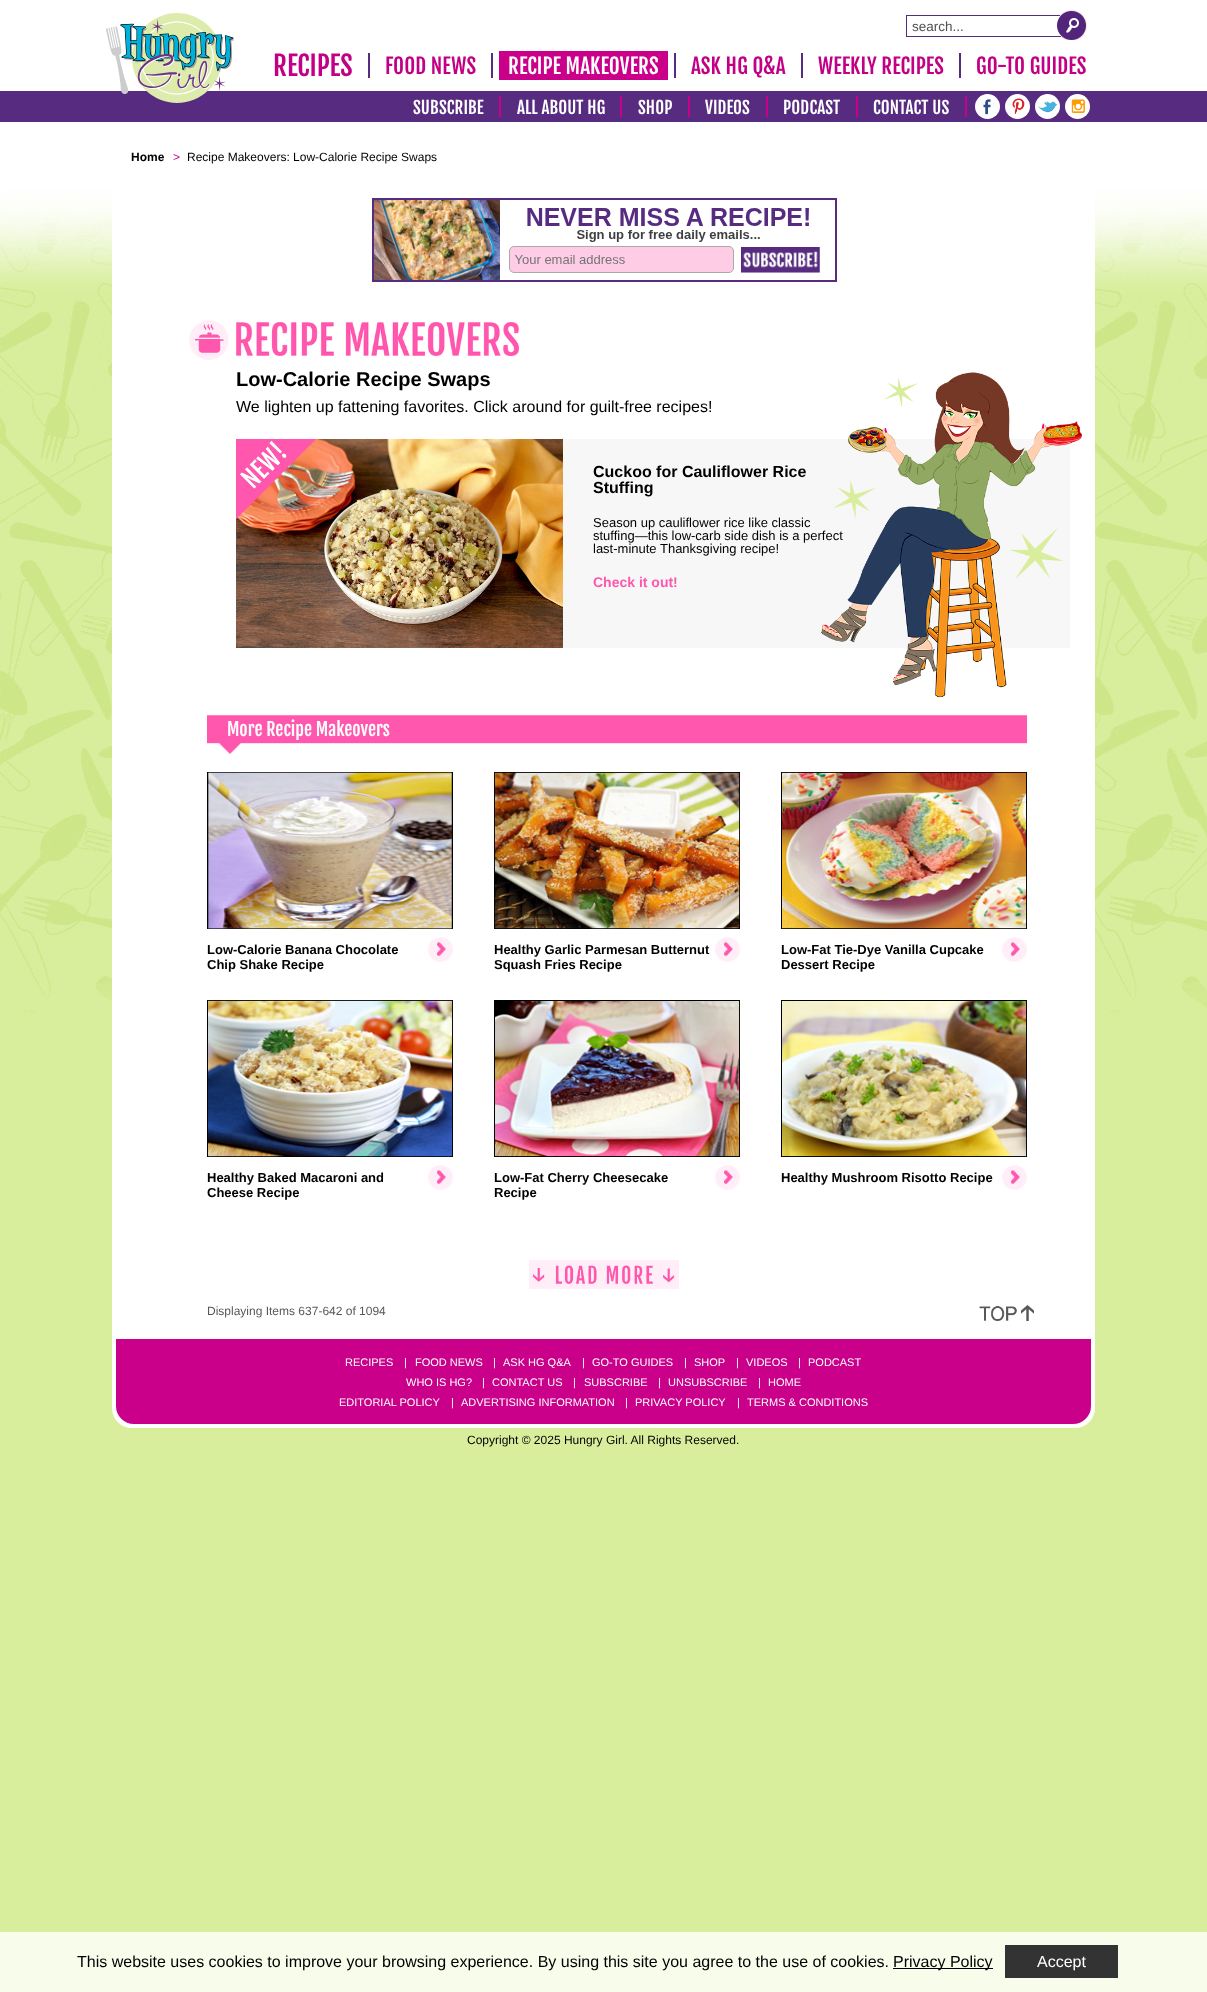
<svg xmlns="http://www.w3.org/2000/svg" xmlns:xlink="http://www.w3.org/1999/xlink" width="1207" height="1992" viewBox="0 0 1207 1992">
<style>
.cls-1{font:13.5px Liberation Sans;fill:#515151}
.cls-2{font:27px Fjalla One;fill:#c20085}
.cls-3{font:21px Fjalla One;letter-spacing:0.1px;fill:#c20085}
.cls-4{font:21px Fjalla One;letter-spacing:0.1px;fill:#ffffff}
.cls-5{font:17px Fjalla One;letter-spacing:0.1px;fill:#ffffff}
.cls-6{font:bold 12px Liberation Sans;fill:#000000}
.cls-7{font:12px Liberation Sans;fill:#ca008a}
.cls-8{font:12px Liberation Sans;fill:#000000}
.cls-9{font:bold 20px Liberation Sans;fill:#000000}
.cls-10{font:16px Liberation Sans;fill:#000000}
.cls-11{font:bold 16px Liberation Sans;fill:#000000}
.cls-12{font:13px Liberation Sans;fill:#000000}
.cls-13{font:bold 14px Liberation Sans;fill:#ff57ae}
.cls-14{font:18px Fjalla One;fill:#ffffff}
.cls-15{font:bold 13px Liberation Sans;fill:#000000}
.cls-16{font:12px Liberation Sans;fill:#585858}
.cls-17{font:11px Liberation Sans;fill:#ffffff}
.cls-18{font:16px Liberation Sans;fill:#ffffff}
</style>
<rect width="100%" height="100%" fill="#d8ee9c"/>
<image xlink:href="image0.png" x="0" y="122" width="1207" height="1053"/>
<rect fill="#ffffff" x="0" y="0" width="1207" height="91"/>
<rect fill="#572b80" x="0" y="91" width="1207" height="31"/>
<image xlink:href="image1.png" x="106" y="13" width="128" height="90"/>
<rect fill="#572d7d" x="906" y="15" width="154" height="1"/>
<rect fill="#572d7d" x="906" y="36" width="155" height="1"/>
<rect fill="#572d7d" x="906" y="15" width="1" height="22"/>
<image xlink:href="image2.png" x="1057" y="10" width="30" height="30"/>
<rect fill="#572b80" x="368" y="53" width="2" height="25"/>
<rect fill="#572b80" x="491" y="53" width="2" height="25"/>
<rect fill="#572b80" x="674" y="53" width="2" height="25"/>
<rect fill="#ca008a" x="499" y="51" width="169" height="29"/>
<rect fill="#572b80" x="801" y="53" width="2" height="25"/>
<rect fill="#572b80" x="959" y="53" width="2" height="25"/>
<rect fill="#ca008a" x="499" y="96" width="2" height="21"/>
<rect fill="#ca008a" x="620" y="96" width="2" height="21"/>
<rect fill="#ca008a" x="688" y="96" width="2" height="21"/>
<rect fill="#ca008a" x="766" y="96" width="2" height="21"/>
<rect fill="#ca008a" x="856" y="96" width="2" height="21"/>
<rect fill="#ca008a" x="965" y="96" width="2" height="21"/>
<circle fill="#ffffff" cx="987.5" cy="106.5" r="12.5"/>
<image xlink:href="image3.png" x="983" y="99" width="8" height="16"/>
<circle fill="#ffffff" cx="1017.5" cy="106.5" r="12.5"/>
<image xlink:href="image4.png" x="1012" y="98" width="13" height="16"/>
<circle fill="#ffffff" cx="1047.5" cy="106.5" r="12.5"/>
<image xlink:href="image5.png" x="1037" y="101" width="21" height="12"/>
<circle fill="#ffffff" cx="1077.5" cy="106.5" r="12.5"/>
<image xlink:href="image6.png" x="1071" y="99" width="14" height="14"/>
<rect fill="#ffffff" x="112" y="137" width="983" height="1291" rx="20"/>
<image xlink:href="image7.png" x="372" y="198" width="465" height="84"/>
<image xlink:href="image8.png" x="189" y="320" width="40" height="40"/>
<image xlink:href="image9.png" x="236" y="322" width="283" height="34"/>
<rect fill="#f7f7f7" x="563" y="439" width="507" height="209"/>
<image xlink:href="image10.png" x="236" y="439" width="327" height="209"/>
<image xlink:href="image11.png" x="236" y="439" width="80" height="80"/>
<image xlink:href="image13.png" x="207" y="715" width="820" height="39"/>
<image xlink:href="image14.png" x="207" y="772" width="246" height="157"/>
<image xlink:href="image15.png" x="428" y="937" width="25" height="25"/>
<image xlink:href="image16.png" x="494" y="772" width="246" height="157"/>
<image xlink:href="image15.png" x="715" y="937" width="25" height="25"/>
<image xlink:href="image17.png" x="781" y="772" width="246" height="157"/>
<image xlink:href="image18.png" x="1002" y="937" width="25" height="25"/>
<image xlink:href="image19.png" x="207" y="1000" width="246" height="157"/>
<image xlink:href="image15.png" x="428" y="1165" width="25" height="25"/>
<image xlink:href="image20.png" x="494" y="1000" width="246" height="157"/>
<image xlink:href="image15.png" x="715" y="1165" width="25" height="25"/>
<image xlink:href="image21.png" x="781" y="1000" width="246" height="157"/>
<image xlink:href="image18.png" x="1002" y="1165" width="25" height="25"/>
<image xlink:href="image22.png" x="529" y="1260" width="150" height="29"/>
<image xlink:href="image23.png" x="979" y="1305" width="55" height="16"/>
<path fill="#ca008a" stroke="#ffffff" stroke-width="2" d="M115 1338H1092V1406C1092 1416.5 1083.5 1425 1073 1425H134C123.5 1425 115 1416.5 115 1406Z"/>
<rect fill="#f7fceb" x="0" y="1932" width="1207" height="60"/>
<rect fill="#000000" x="893" y="1968" width="100" height="1"/>
<rect fill="#333333" x="1005" y="1945" width="113" height="33"/>
<text class="cls-1" x="912" y="31">search...</text>
<text class="cls-2" x="273" y="76">RECIPES</text>
<text class="cls-3" x="385" y="74">FOOD NEWS</text>
<text class="cls-4" x="508" y="74">RECIPE MAKEOVERS</text>
<text class="cls-3" x="691" y="74">ASK HG Q&amp;A</text>
<text class="cls-3" x="818" y="74">WEEKLY RECIPES</text>
<text class="cls-3" x="976" y="74">GO-TO GUIDES</text>
<text class="cls-5" x="413" y="114">SUBSCRIBE</text>
<text class="cls-5" x="517" y="114">ALL ABOUT HG</text>
<text class="cls-5" x="638" y="114">SHOP</text>
<text class="cls-5" x="705" y="114">VIDEOS</text>
<text class="cls-5" x="783" y="114">PODCAST</text>
<text class="cls-5" x="873" y="114">CONTACT US</text>
<text class="cls-6" x="131" y="161">Home</text>
<text class="cls-7" x="173" y="161">&gt;</text>
<text class="cls-8" x="187" y="161">Recipe Makeovers: Low-Calorie Recipe Swaps</text>
<text class="cls-9" x="236" y="386">Low-Calorie Recipe Swaps</text>
<text class="cls-10" x="236" y="412">We lighten up fattening favorites. Click around for guilt-free recipes!</text>
<text class="cls-11"><tspan x="593" y="477">Cuckoo for Cauliflower Rice</tspan><tspan x="593" y="493">Stuffing</tspan></text>
<text class="cls-12"><tspan x="593" y="527">Season up cauliflower rice like classic</tspan><tspan x="593" y="540">stuffing—this low-carb side dish is a perfect</tspan></text>
<image xlink:href="image12.png" x="821" y="372" width="261" height="326"/>
<text class="cls-12" x="593" y="553">last-minute Thanksgiving recipe!</text>
<text class="cls-13" x="593" y="587">Check it out!</text>
<text class="cls-14" x="227" y="736">More Recipe Makeovers</text>
<text class="cls-15"><tspan x="207" y="954">Low-Calorie Banana Chocolate</tspan><tspan x="207" y="969">Chip Shake Recipe</tspan></text>
<text class="cls-15"><tspan x="494" y="954">Healthy Garlic Parmesan Butternut</tspan><tspan x="494" y="969">Squash Fries Recipe</tspan></text>
<text class="cls-15"><tspan x="781" y="954">Low-Fat Tie-Dye Vanilla Cupcake</tspan><tspan x="781" y="969">Dessert Recipe</tspan></text>
<text class="cls-15"><tspan x="207" y="1182">Healthy Baked Macaroni and</tspan><tspan x="207" y="1197">Cheese Recipe</tspan></text>
<text class="cls-15"><tspan x="494" y="1182">Low-Fat Cherry Cheesecake</tspan><tspan x="494" y="1197">Recipe</tspan></text>
<text class="cls-15" x="781" y="1182">Healthy Mushroom Risotto Recipe</text>
<text class="cls-16" x="207" y="1315">Displaying Items 637-642 of 1094</text>
<text class="cls-17" x="345" y="1366">RECIPES</text>
<text class="cls-17" x="404" y="1366">|</text>
<text class="cls-17" x="415" y="1366">FOOD NEWS</text>
<text class="cls-17" x="493" y="1366">|</text>
<text class="cls-17" x="503" y="1366">ASK HG Q&amp;A</text>
<text class="cls-17" x="582" y="1366">|</text>
<text class="cls-17" x="592" y="1366">GO-TO GUIDES</text>
<text class="cls-17" x="684" y="1366">|</text>
<text class="cls-17" x="694" y="1366">SHOP</text>
<text class="cls-17" x="736" y="1366">|</text>
<text class="cls-17" x="746" y="1366">VIDEOS</text>
<text class="cls-17" x="798" y="1366">|</text>
<text class="cls-17" x="808" y="1366">PODCAST</text>
<text class="cls-17" x="406" y="1386">WHO IS HG?</text>
<text class="cls-17" x="482" y="1386">|</text>
<text class="cls-17" x="492" y="1386">CONTACT US</text>
<text class="cls-17" x="573" y="1386">|</text>
<text class="cls-17" x="584" y="1386">SUBSCRIBE</text>
<text class="cls-17" x="658" y="1386">|</text>
<text class="cls-17" x="668" y="1386">UNSUBSCRIBE</text>
<text class="cls-17" x="758" y="1386">|</text>
<text class="cls-17" x="768" y="1386">HOME</text>
<text class="cls-17" x="339" y="1406">EDITORIAL POLICY</text>
<text class="cls-17" x="451" y="1406">|</text>
<text class="cls-17" x="461" y="1406">ADVERTISING INFORMATION</text>
<text class="cls-17" x="625" y="1406">|</text>
<text class="cls-17" x="635" y="1406">PRIVACY POLICY</text>
<text class="cls-17" x="737" y="1406">|</text>
<text class="cls-17" x="747" y="1406">TERMS &amp; CONDITIONS</text>
<text class="cls-8" x="467" y="1444">Copyright © 2025 Hungry Girl. All Rights Reserved.</text>
<text class="cls-10" x="77" y="1967">This website uses cookies to improve your browsing experience. By using this site you agree to the use of cookies.</text>
<text class="cls-10" x="893" y="1967">Privacy Policy</text>
<text class="cls-18" x="1037" y="1967">Accept</text>
</svg>
